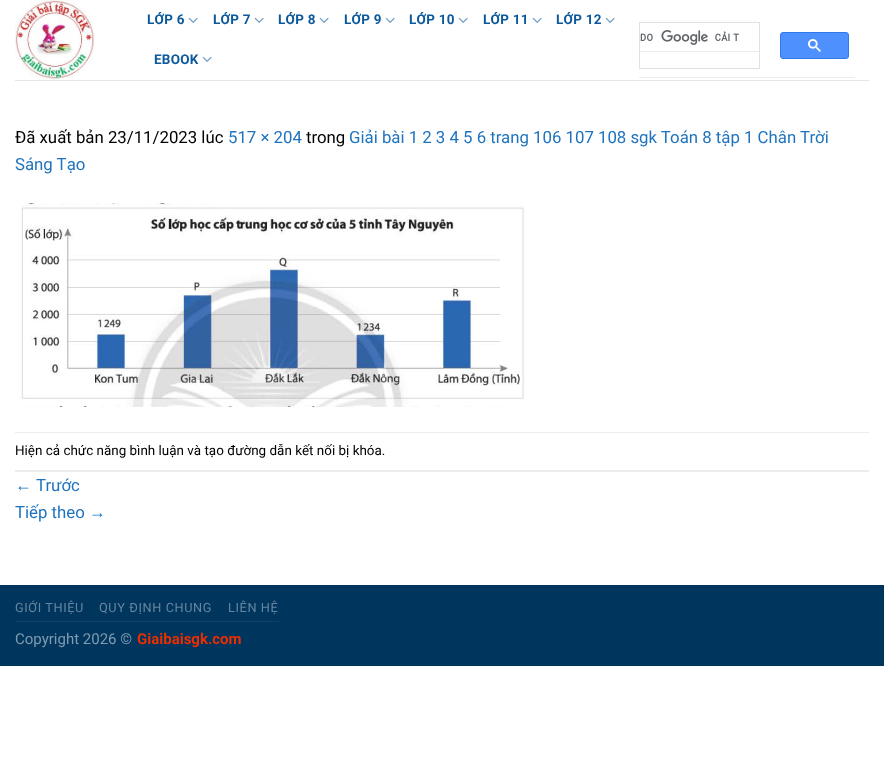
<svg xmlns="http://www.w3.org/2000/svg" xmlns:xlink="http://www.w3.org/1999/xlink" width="884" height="761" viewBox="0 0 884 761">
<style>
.cls-1{font:bold 13.45px Roboto;letter-spacing:0.25px;fill:#0b589c}
.cls-2{font:16.8px Roboto;fill:#000000}
.cls-3{font:16.8px Roboto;fill:#1e73be}
.cls-4{font:13.45px Roboto;fill:#000000}
.cls-5{font:16.8px Liberation Sans;fill:#1e73be}
.cls-6{font:12.75px Roboto;letter-spacing:0.6px;fill:#66869f}
.cls-7{font:15px Roboto;fill:#809aaf}
.cls-8{font:bold 15px Roboto;fill:#ea2e00}
</style>
<rect width="100%" height="100%" fill="#ffffff"/>
<image xlink:href="image0.png" x="15" y="0" width="80" height="80"/>
<image xlink:href="image1.png" x="188" y="17" width="10" height="6"/>
<image xlink:href="image1.png" x="254" y="17" width="10" height="6"/>
<image xlink:href="image1.png" x="319" y="17" width="10" height="6"/>
<image xlink:href="image1.png" x="385" y="17" width="10" height="6"/>
<image xlink:href="image1.png" x="458" y="17" width="10" height="6"/>
<image xlink:href="image1.png" x="532" y="17" width="10" height="6"/>
<image xlink:href="image1.png" x="605" y="17" width="10" height="6"/>
<image xlink:href="image1.png" x="202" y="56" width="10" height="6"/>
<rect fill="#ececec" x="639" y="77" width="216" height="1"/>
<rect fill="none" stroke="#dfe1e5" x="639.5" y="22.5" width="120" height="46"/>
<rect fill="#ececec" x="640" y="51" width="119" height="1"/>
<image xlink:href="image2.png" x="640" y="30" width="99" height="15"/>
<rect fill="#4d90fe" stroke="#3079ed" x="780.5" y="32.5" width="68" height="26" rx="2.5"/>
<image xlink:href="image3.png" x="808" y="39" width="13" height="13"/>
<rect fill="#e6e6e6" x="15" y="80" width="854" height="1"/>
<image xlink:href="image4.png" x="20" y="203" width="505" height="204"/>
<rect fill="#ececec" x="15" y="432" width="854" height="1"/>
<rect fill="#ececec" x="15" y="470" width="854" height="2"/>
<rect fill="#00355e" x="0" y="585" width="884" height="81"/>
<rect fill="#104268" x="15" y="621" width="264" height="1"/>
<text class="cls-1" x="147" y="24">LỚP 6</text>
<text class="cls-1" x="213" y="24">LỚP 7</text>
<text class="cls-1" x="278" y="24">LỚP 8</text>
<text class="cls-1" x="344" y="24">LỚP 9</text>
<text class="cls-1" x="409" y="24">LỚP 10</text>
<text class="cls-1" x="483" y="24">LỚP 11</text>
<text class="cls-1" x="556" y="24">LỚP 12</text>
<text class="cls-1" x="154" y="64">EBOOK</text>
<text class="cls-2" x="15" y="143">Đã xuất bản 23/11/2023 lúc</text>
<text class="cls-3" x="228" y="143">517 × 204</text>
<text class="cls-2" x="306" y="143">trong</text>
<text class="cls-3" x="349" y="143">Giải bài 1 2 3 4 5 6 trang 106 107 108 sgk Toán 8 tập 1 Chân Trời</text>
<text class="cls-3" x="15" y="170">Sáng Tạo</text>
<text class="cls-4" x="15" y="455">Hiện cả chức năng bình luận và tạo đường dẫn kết nối bị khóa.</text>
<text class="cls-5" x="15" y="491">←</text>
<text class="cls-3" x="36" y="491">Trước</text>
<text class="cls-3" x="15" y="518">Tiếp theo</text>
<text class="cls-5" x="89" y="518">→</text>
<text class="cls-6" x="15" y="612">GIỚI THIỆU</text>
<text class="cls-6" x="99" y="612">QUY ĐỊNH CHUNG</text>
<text class="cls-6" x="228" y="612">LIÊN HỆ</text>
<text class="cls-7" x="15" y="644">Copyright 2026 ©</text>
<text class="cls-8" x="137" y="644">Giaibaisgk.com</text>
</svg>
